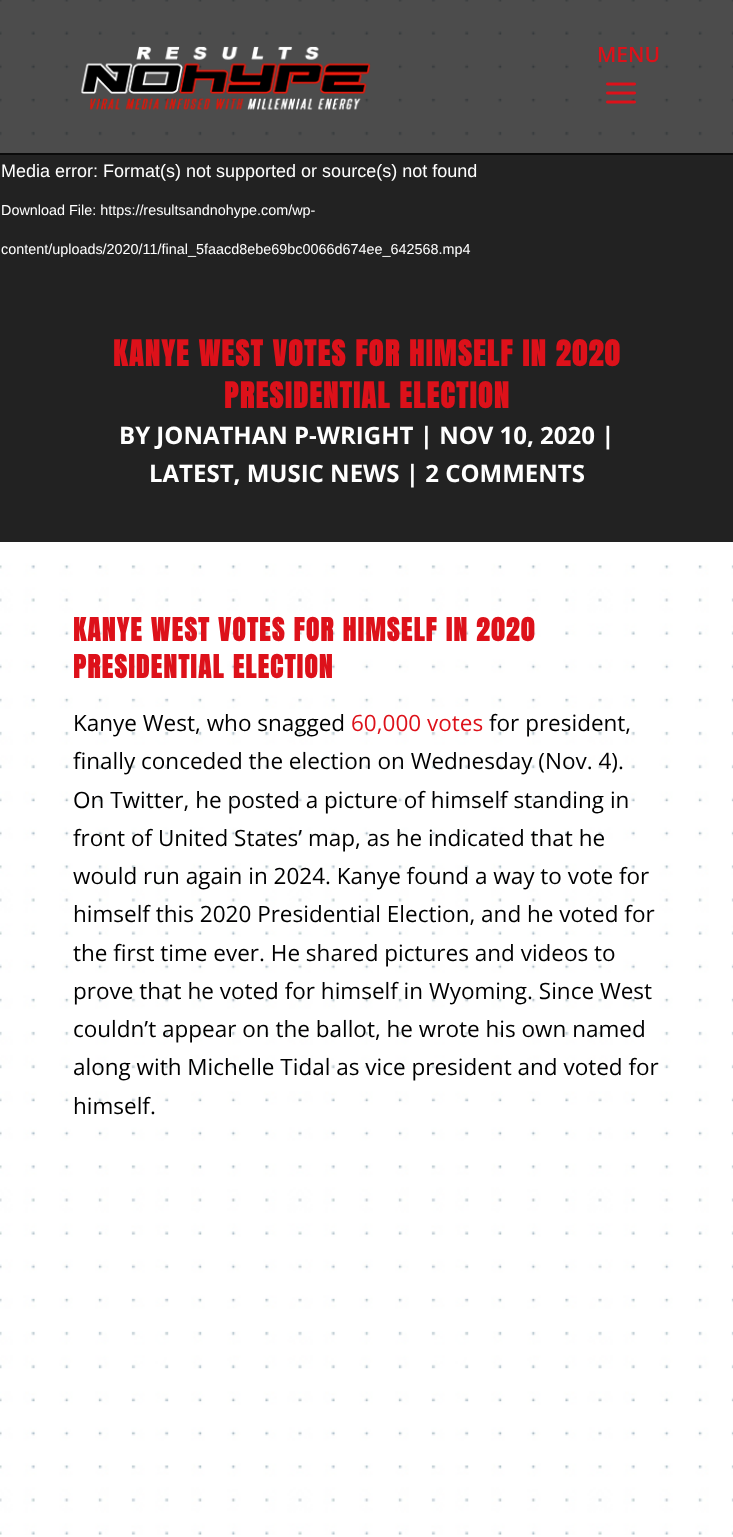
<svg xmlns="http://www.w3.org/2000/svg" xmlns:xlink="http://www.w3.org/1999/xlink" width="733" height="1537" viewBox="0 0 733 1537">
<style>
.cls-1{font:600 21px Open Sans;fill:#dd111a}
.cls-2{font:18px Liberation Sans;fill:#ffffff}
.cls-3{font:14.4px Liberation Sans;fill:#ffffff}
.cls-4{font:bold 30px Anton;letter-spacing:1.5px;fill:#dd111a}
.cls-5{font:bold 24px Open Sans;fill:#ffffff}
.cls-6{font:bold 27px Anton;letter-spacing:1.5px;fill:#dd111a}
.cls-7{font:22.5px Open Sans;fill:#000000}
.cls-8{font:22.5px Open Sans;fill:#dd111a}
</style>
<rect width="100%" height="100%" fill="#ffffff"/>
<image xlink:href="image0.png" x="0" y="0" width="733" height="1535"/>
<rect fill="#222222" x="0" y="153" width="733" height="389"/>
<rect fill="#000000" fill-opacity="0.7" x="0" y="0" width="733" height="155"/>
<image xlink:href="image1.png" x="81" y="46" width="290" height="64"/>
<image xlink:href="image2.png" x="606" y="82" width="30" height="22"/>
<text class="cls-1" x="597" y="62">MENU</text>
<text class="cls-2" x="1" y="177">Media error: Format(s) not supported or source(s) not found</text>
<text class="cls-3" x="1" y="215">Download File: https://resultsandnohype.com/wp-</text>
<text class="cls-3" x="1" y="254">content/uploads/2020/11/final_5faacd8ebe69bc0066d674ee_642568.mp4</text>
<text class="cls-4" x="113" y="366">KANYE WEST VOTES FOR HIMSELF IN 2020</text>
<text class="cls-4" x="224" y="408">PRESIDENTIAL ELECTION</text>
<text class="cls-5" x="119" y="444">BY JONATHAN P-WRIGHT | NOV 10, 2020 |</text>
<text class="cls-5" x="149" y="482">LATEST, MUSIC NEWS | 2 COMMENTS</text>
<text class="cls-6"><tspan x="73" y="641">KANYE WEST VOTES FOR HIMSELF IN 2020</tspan><tspan x="73" y="678">PRESIDENTIAL ELECTION</tspan></text>
<text class="cls-7" x="73" y="731">Kanye West, who snagged</text>
<text class="cls-8" x="351" y="731">60,000 votes</text>
<text class="cls-7" x="489" y="731">for president,</text>
<text class="cls-7"><tspan x="73" y="769">finally conceded the election on Wednesday (Nov. 4).</tspan><tspan x="73" y="808">On Twitter, he posted a picture of himself standing in</tspan><tspan x="73" y="846">front of United States’ map, as he indicated that he</tspan><tspan x="73" y="884">would run again in 2024. Kanye found a way to vote for</tspan><tspan x="73" y="922">himself this 2020 Presidential Election, and he voted for</tspan><tspan x="73" y="961">the first time ever. He shared pictures and videos to</tspan><tspan x="73" y="999">prove that he voted for himself in Wyoming. Since West</tspan><tspan x="73" y="1037">couldn’t appear on the ballot, he wrote his own named</tspan><tspan x="73" y="1075">along with Michelle Tidal as vice president and voted for</tspan><tspan x="73" y="1114">himself.</tspan></text>
</svg>
